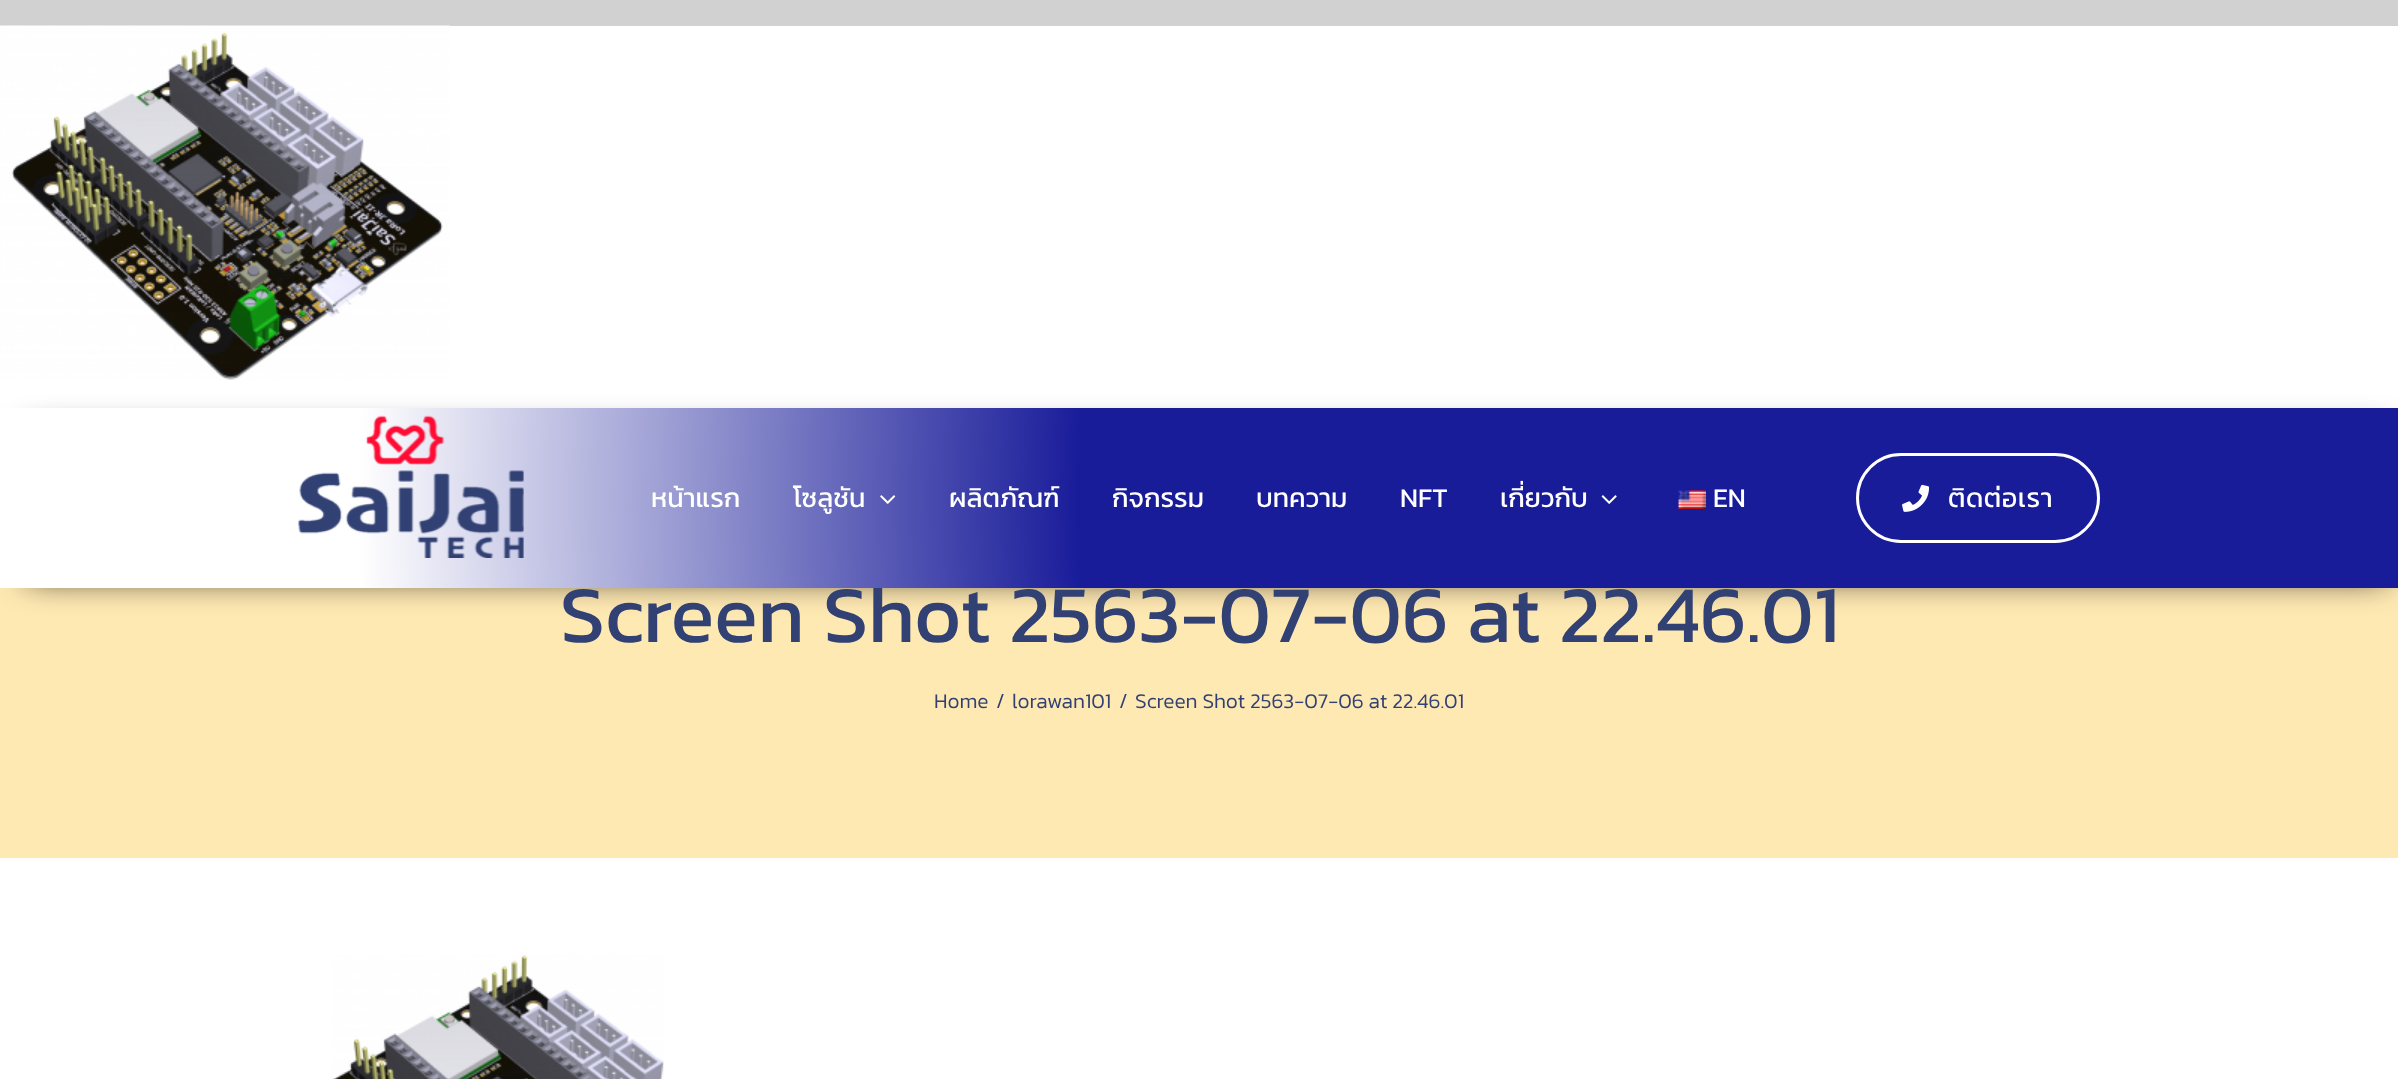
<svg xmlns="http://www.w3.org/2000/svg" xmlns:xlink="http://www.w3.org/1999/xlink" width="2398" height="1079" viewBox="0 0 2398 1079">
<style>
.cls-1{font:81px Kanit;fill:#314174}
.cls-2{font:27px Kanit;fill:#ffffff}
.cls-3{font:27px Kanit;letter-spacing:0.5px;fill:#ffffff}
.cls-4{font:300 21px Kanit;fill:#314174}
</style>
<defs>
<radialGradient id="g1" gradientUnits="userSpaceOnUse" cx="2399" cy="498" r="2400"><stop offset="0.55" stop-color="#191c99"/><stop offset="0.85" stop-color="#ffffff"/></radialGradient>
</defs>
<rect width="100%" height="100%" fill="#d1d1d1"/>
<rect fill="#ffffff" x="0" y="26" width="2398" height="1053"/>
<image xlink:href="image0.png" x="0" y="25" width="450" height="355"/>
<rect fill="#ffe9b3" x="0" y="588" width="2398" height="270"/>
<rect fill="#000000" filter="blur(17px)" x="27" y="435" width="2360" height="141"/>
<image xlink:href="image6.png" x="332" y="955" width="332" height="124"/>
<text class="cls-1" x="560" y="642">Screen Shot 2563-07-06 at 22.46.01</text>
<rect fill="url(#g1)" x="0" y="408" width="2398" height="180"/>
<text class="cls-2" x="1713" y="507">EN</text>
<image xlink:href="image4.png" x="1678" y="490" width="28" height="19"/>
<image xlink:href="image3.png" x="1601" y="495" width="16" height="9"/>
<text class="cls-2" x="1500" y="507">เกี่ยวกับ</text>
<text class="cls-2" x="1400" y="507">NFT</text>
<text class="cls-2" x="1256" y="507">บทความ</text>
<text class="cls-2" x="1112" y="507">กิจกรรม</text>
<text class="cls-2" x="949" y="507">ผลิตภัณฑ์</text>
<image xlink:href="image2.png" x="880" y="495" width="16" height="9"/>
<text class="cls-2" x="793" y="507">โซลูชัน</text>
<text class="cls-2" x="651" y="507">หน้าแรก</text>
<image xlink:href="image1.png" x="298" y="415" width="226" height="143"/>
<rect fill="none" stroke="#ffffff" stroke-width="3" x="1857.5" y="454.5" width="241" height="87" rx="43.5"/>
<text class="cls-3" x="1948" y="507">ติดต่อเรา</text>
<image xlink:href="image5.png" x="1902" y="484" width="28" height="28"/>
<text class="cls-4" x="934" y="708">Home</text>
<text class="cls-4" x="996" y="708">/</text>
<text class="cls-4" x="1012" y="708">lorawan101</text>
<text class="cls-4" x="1119" y="708">/</text>
<text class="cls-4" x="1135" y="708">Screen Shot 2563-07-06 at 22.46.01</text>
</svg>
